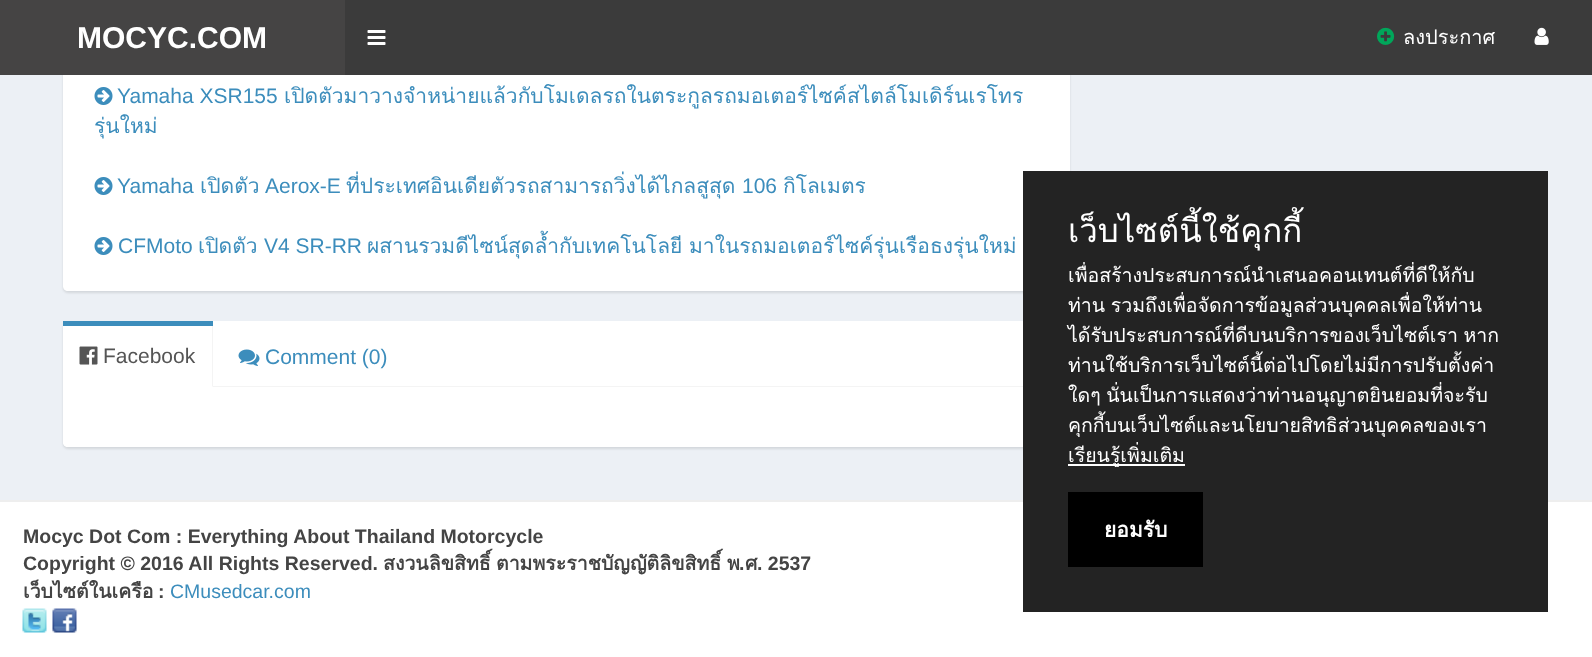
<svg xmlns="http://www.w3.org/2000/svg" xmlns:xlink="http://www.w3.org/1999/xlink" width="1592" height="657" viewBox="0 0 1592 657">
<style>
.cls-1{font:bold 30px Liberation Sans;fill:#ffffff}
.cls-2{font:20px Loma;fill:#ffffff}
.cls-3{font:21px Liberation Sans;fill:#3c8dbc}
.cls-4{font:21px Loma;fill:#3c8dbc}
.cls-5{font:21px Liberation Sans;fill:#555555}
.cls-6{font:bold 19.5px Liberation Sans;fill:#444444}
.cls-7{font:bold 19.5px Loma;fill:#444444}
.cls-8{font:19.5px Liberation Sans;fill:#3c8dbc}
.cls-9{font:33px Loma;fill:#ffffff}
.cls-10{font:19.5px Loma;fill:#ffffff}
.cls-11{font:bold 21px Loma;fill:#ffffff}
</style>
<rect width="100%" height="100%" fill="#ecf0f5"/>
<rect fill="#000000" fill-opacity="0.1" filter="blur(1px)" x="63" y="-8" width="1007" height="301" rx="5"/>
<path fill="#ffffff" d="M63-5H1070V286C1070 289 1068 291 1065 291H68C65 291 63 289 63 286Z"/>
<rect fill="#454444" x="0" y="0" width="345" height="75"/>
<rect fill="#3b3b3b" x="345" y="0" width="1247" height="75"/>
<image xlink:href="image0.png" x="367" y="30" width="19" height="15"/>
<image xlink:href="image1.png" x="1377" y="27" width="18" height="18"/>
<image xlink:href="image2.png" x="1534" y="27" width="15" height="18"/>
<image xlink:href="image3.png" x="94" y="87" width="19" height="18"/>
<image xlink:href="image3.png" x="94" y="177" width="19" height="18"/>
<image xlink:href="image3.png" x="94" y="237" width="19" height="18"/>
<rect fill="#000000" fill-opacity="0.1" filter="blur(1px)" x="63" y="323" width="1007" height="126" rx="5"/>
<rect fill="#ffffff" x="63" y="321" width="1007" height="126" rx="5"/>
<rect fill="#f4f4f4" x="213" y="386" width="810" height="1"/>
<rect fill="#3c8dbc" x="63" y="321" width="150" height="5"/>
<path fill="#f4f4f4" d="M213 326V387L212 386V326Z"/>
<image xlink:href="image4.png" x="79" y="346" width="19" height="19"/>
<image xlink:href="image5.png" x="238" y="349" width="22" height="17"/>
<path fill="#ffffff" d="M63 387H1070V442C1070 445 1068 447 1065 447H68C65 447 63 445 63 442Z"/>
<rect fill="#ffffff" x="0" y="502" width="1592" height="155"/>
<rect fill="#eeeeee" x="0" y="500" width="1592" height="2"/>
<image xlink:href="image6.png" x="22" y="608" width="25" height="25"/>
<image xlink:href="image7.png" x="52" y="608" width="25" height="25"/>
<rect fill="#232323" x="1023" y="171" width="525" height="441"/>
<rect fill="#ffffff" x="1068" y="464" width="117" height="2"/>
<rect fill="#000000" x="1068" y="492" width="135" height="75"/>
<text class="cls-1" x="77" y="48">MOCYC.COM</text>
<text class="cls-2" x="1403" y="44">ลงประกาศ</text>
<text class="cls-3" x="117" y="103">Yamaha XSR155</text>
<text class="cls-4" x="284" y="103">เปิดตัวมาวางจำหน่ายแล้วกับโมเดลรถในตระกูลรถมอเตอร์ไซค์สไตล์โมเดิร์นเรโทร</text>
<text class="cls-4" x="94" y="133">รุ่นใหม่</text>
<text class="cls-3" x="117" y="193">Yamaha</text>
<text class="cls-4" x="200" y="193">เปิดตัว</text>
<text class="cls-3" x="265" y="193">Aerox-E</text>
<text class="cls-4" x="346" y="193">ที่ประเทศอินเดียตัวรถสามารถวิ่งได้ไกลสูสุด</text>
<text class="cls-3" x="742" y="193">106</text>
<text class="cls-4" x="783" y="193">กิโลเมตร</text>
<text class="cls-3" x="118" y="253">CFMoto</text>
<text class="cls-4" x="198" y="253">เปิดตัว</text>
<text class="cls-3" x="264" y="253">V4 SR-RR</text>
<text class="cls-4" x="367" y="253">ผสานรวมดีไซน์สุดล้ำกับเทคโนโลยี</text>
<text class="cls-4" x="689" y="253">มาในรถมอเตอร์ไซค์รุ่นเรือธงรุ่นใหม่</text>
<text class="cls-5" x="103" y="363">Facebook</text>
<text class="cls-3" x="265" y="364">Comment (0)</text>
<text class="cls-6"><tspan x="23" y="543">Mocyc Dot Com : Everything About Thailand Motorcycle</tspan><tspan x="23" y="570">Copyright © 2016 All Rights Reserved.</tspan></text>
<text class="cls-7" x="383" y="570">สงวนลิขสิทธิ์</text>
<text class="cls-7" x="496" y="570">ตามพระราชบัญญัติลิขสิทธิ์</text>
<text class="cls-7" x="727" y="570">พ</text>
<text class="cls-6" x="739" y="570">.</text>
<text class="cls-7" x="745" y="570">ศ</text>
<text class="cls-6" x="757" y="570">. 2537</text>
<text class="cls-7" x="23" y="598">เว็บไซต์ในเครือ</text>
<text class="cls-6" x="158" y="598">:</text>
<text class="cls-8" x="170" y="598">CMusedcar.com</text>
<text class="cls-9" x="1068" y="242">เว็บไซต์นี้ใช้คุกกี้</text>
<text class="cls-10"><tspan x="1068" y="282">เพื่อสร้างประสบการณ์นำเสนอคอนเทนต์ที่ดีให้กับ</tspan><tspan x="1068" y="312" word-spacing="-1">ท่าน รวมถึงเพื่อจัดการข้อมูลส่วนบุคคลเพื่อให้ท่าน</tspan><tspan x="1068" y="342" word-spacing="-1">ได้รับประสบการณ์ที่ดีบนบริการของเว็บไซต์เรา หาก</tspan><tspan x="1068" y="372">ท่านใช้บริการเว็บไซต์นี้ต่อไปโดยไม่มีการปรับตั้งค่า</tspan><tspan x="1068" y="402" word-spacing="-1">ใดๆ นั่นเป็นการแสดงว่าท่านอนุญาตยินยอมที่จะรับ</tspan><tspan x="1068" y="432">คุกกี้บนเว็บไซต์และนโยบายสิทธิส่วนบุคคลของเรา</tspan><tspan x="1068" y="462">เรียนรู้เพิ่มเติม</tspan></text>
<text class="cls-11" x="1104" y="537">ยอมรับ</text>
</svg>
